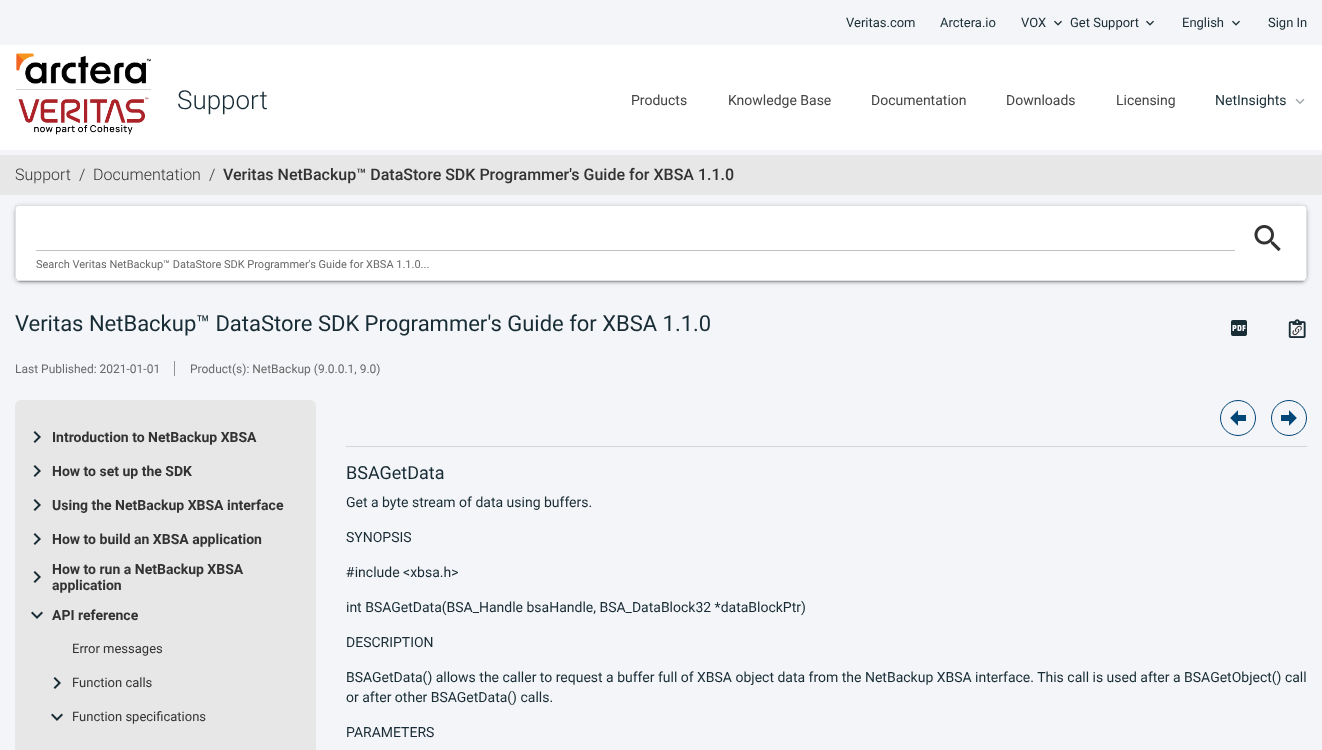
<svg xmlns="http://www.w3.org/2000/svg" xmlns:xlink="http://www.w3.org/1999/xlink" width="1322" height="750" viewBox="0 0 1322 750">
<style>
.cls-1{font:13px Roboto;fill:#182c35}
.cls-2{font:300 26px Roboto;fill:#182c35}
.cls-3{font:14px Roboto;fill:#434343}
.cls-4{font:14px Roboto;fill:#182c35}
.cls-5{font:300 16px Roboto;fill:#333333}
.cls-6{font:500 16px Roboto;fill:#333333}
.cls-7{font:11px Roboto;fill:#696969}
.cls-8{font:22px Roboto;fill:#182c35}
.cls-9{font:12px Roboto;fill:#696969}
.cls-10{font:bold 14px Roboto;fill:#333333}
.cls-11{font:13px Roboto;fill:#333333}
.cls-12{font:18px Roboto;fill:#182c35}
</style>
<rect width="100%" height="100%" fill="#f4f5f8"/>
<image xlink:href="image0.png" x="1054" y="20" width="8" height="6"/>
<image xlink:href="image0.png" x="1146" y="20" width="8" height="6"/>
<image xlink:href="image0.png" x="1232" y="20" width="8" height="6"/>
<rect fill="#ffffff" x="0" y="45" width="1322" height="105"/>
<image xlink:href="image1.png" x="16" y="53" width="135" height="31"/>
<rect fill="#d5d5d5" x="16" y="89" width="135" height="1"/>
<image xlink:href="image2.png" x="18" y="97" width="131" height="38"/>
<image xlink:href="image3.png" x="1295" y="98" width="10" height="6"/>
<rect fill="#e7e7e7" x="0" y="155" width="1322" height="40"/>
<rect fill="#000000" fill-opacity="0.12" filter="blur(0.5px)" x="17" y="210" width="1288" height="72" rx="4"/>
<rect fill="#000000" fill-opacity="0.14" filter="blur(1px)" x="15" y="207" width="1292" height="76" rx="6"/>
<rect fill="#000000" fill-opacity="0.2" filter="blur(2.5px)" x="15" y="206" width="1292" height="76" rx="6"/>
<rect fill="#ffffff" x="15" y="205" width="1292" height="76" rx="6"/>
<rect fill="none" stroke="#dee2e6" x="15.5" y="205.5" width="1291" height="75"/>
<rect fill="#c2c2c2" x="36" y="250" width="1199" height="1"/>
<image xlink:href="image4.png" x="1254" y="225" width="27" height="27"/>
<image xlink:href="image5.png" x="1231" y="320" width="16" height="16"/>
<image xlink:href="image6.png" x="1288" y="319" width="18" height="19"/>
<image xlink:href="image7.png" x="1292" y="325" width="10" height="11"/>
<rect fill="#939393" x="174" y="361" width="1" height="15"/>
<rect fill="#e7e7e7" x="15" y="400" width="301" height="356" rx="6"/>
<image xlink:href="image8.png" x="33" y="431" width="8" height="12"/>
<image xlink:href="image8.png" x="33" y="465" width="8" height="12"/>
<image xlink:href="image8.png" x="33" y="499" width="8" height="12"/>
<image xlink:href="image8.png" x="33" y="533" width="8" height="12"/>
<image xlink:href="image8.png" x="33" y="571" width="8" height="12"/>
<image xlink:href="image9.png" x="31" y="611" width="12" height="8"/>
<image xlink:href="image8.png" x="53" y="677" width="8" height="12"/>
<image xlink:href="image9.png" x="51" y="713" width="12" height="8"/>
<rect fill="#d5d5d5" x="346" y="446" width="961" height="1"/>
<circle fill="none" stroke="#004677" cx="1238" cy="418" r="17.5"/>
<image xlink:href="image10.png" x="1230" y="410" width="16" height="16"/>
<circle fill="none" stroke="#004677" cx="1289" cy="418" r="17.5"/>
<image xlink:href="image11.png" x="1281" y="410" width="16" height="16"/>
<text class="cls-1" x="846" y="27">Veritas.com</text>
<text class="cls-1" x="940" y="27">Arctera.io</text>
<text class="cls-1" x="1021" y="27">VOX</text>
<text class="cls-1" x="1070" y="27">Get Support</text>
<text class="cls-1" x="1182" y="27">English</text>
<text class="cls-1" x="1268" y="27">Sign In</text>
<text class="cls-2" x="177" y="109">Support</text>
<text class="cls-3" x="631" y="105">Products</text>
<text class="cls-3" x="728" y="105">Knowledge Base</text>
<text class="cls-3" x="871" y="105">Documentation</text>
<text class="cls-3" x="1006" y="105">Downloads</text>
<text class="cls-3" x="1116" y="105">Licensing</text>
<text class="cls-4" x="1215" y="105">NetInsights</text>
<text class="cls-5" x="15" y="180">Support</text>
<text class="cls-5" x="79" y="180">/</text>
<text class="cls-5" x="93" y="180">Documentation</text>
<text class="cls-5" x="209" y="180">/</text>
<text class="cls-6" x="223" y="180">Veritas NetBackup™ DataStore SDK Programmer's Guide for XBSA 1.1.0</text>
<text class="cls-7" x="36" y="268">Search Veritas NetBackup™ DataStore SDK Programmer's Guide for XBSA 1.1.0...</text>
<text class="cls-8" x="15" y="331">Veritas NetBackup™ DataStore SDK Programmer's Guide for XBSA 1.1.0</text>
<text class="cls-9" x="15" y="373">Last Published: 2021-01-01</text>
<text class="cls-9" x="190" y="373">Product(s): NetBackup (9.0.0.1, 9.0)</text>
<text class="cls-10" x="52" y="442">Introduction to NetBackup XBSA</text>
<text class="cls-10" x="52" y="476">How to set up the SDK</text>
<text class="cls-10" x="52" y="510">Using the NetBackup XBSA interface</text>
<text class="cls-10" x="52" y="544">How to build an XBSA application</text>
<text class="cls-10"><tspan x="52" y="574">How to run a NetBackup XBSA</tspan><tspan x="52" y="590">application</tspan></text>
<text class="cls-10" x="52" y="620">API reference</text>
<text class="cls-11" x="72" y="653">Error messages</text>
<text class="cls-11" x="72" y="687">Function calls</text>
<text class="cls-11" x="72" y="721">Function specifications</text>
<text class="cls-12" x="346" y="479">BSAGetData</text>
<text class="cls-4" x="346" y="507">Get a byte stream of data using buffers.</text>
<text class="cls-4" x="346" y="542">SYNOPSIS</text>
<text class="cls-4" x="346" y="577">#include &lt;xbsa.h&gt;</text>
<text class="cls-4" x="346" y="612">int BSAGetData(BSA_Handle bsaHandle, BSA_DataBlock32 *dataBlockPtr)</text>
<text class="cls-4" x="346" y="647">DESCRIPTION</text>
<text class="cls-4"><tspan x="346" y="682">BSAGetData() allows the caller to request a buffer full of XBSA object data from the NetBackup XBSA interface. This call is used after a BSAGetObject() call</tspan><tspan x="346" y="702">or after other BSAGetData() calls.</tspan></text>
<text class="cls-4" x="346" y="737">PARAMETERS</text>
</svg>
